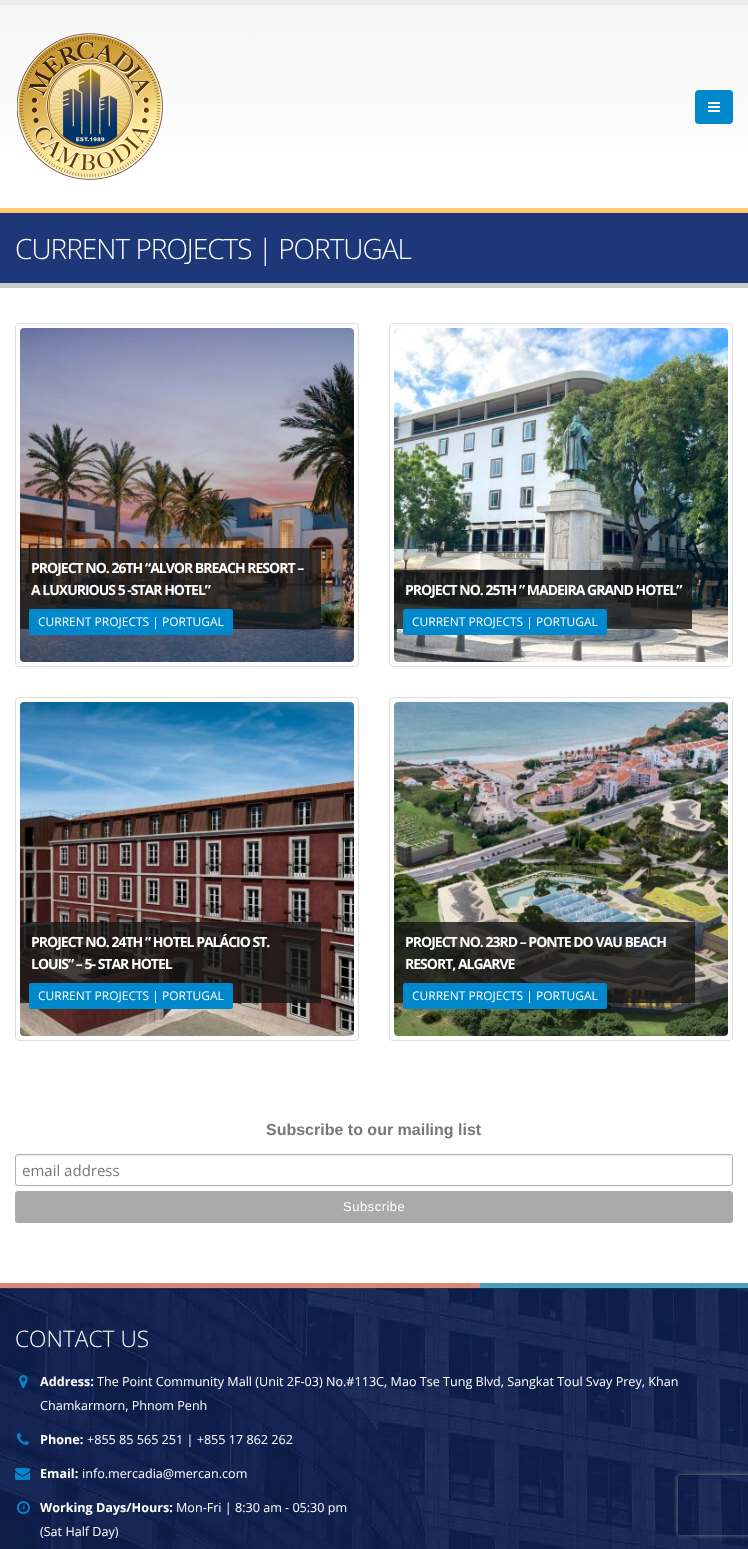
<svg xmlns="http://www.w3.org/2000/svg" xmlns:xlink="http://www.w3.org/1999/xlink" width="748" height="1549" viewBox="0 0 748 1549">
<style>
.cls-1{font:300 28px Open Sans;letter-spacing:-1px;fill:#ffffff}
.cls-2{font:bold 14px Open Sans;letter-spacing:-1px;fill:#ffffff}
.cls-3{font:12px Open Sans;fill:#ffffff}
.cls-4{font:bold 16px Liberation Sans;fill:#777777}
.cls-5{font:15px Open Sans;fill:#777777}
.cls-6{font:13px Liberation Sans;letter-spacing:0.5px;fill:#ffffff}
.cls-7{font:300 22.75px Open Sans;fill:#ffffff}
.cls-8{font:bold 12.6px Open Sans;fill:#ffffff}
.cls-9{font:12.6px Open Sans;fill:#ffffff}
</style>
<defs>
<linearGradient id="g1" gradientUnits="userSpaceOnUse" x1="374" y1="5" x2="374" y2="208"><stop offset="0" stop-color="#f6f6f6"/><stop offset="1" stop-color="#ffffff"/></linearGradient>
<clipPath id="clip1"><path d="M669 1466H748V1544H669ZM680 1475H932C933 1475 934 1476 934 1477V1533C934 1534 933 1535 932 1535H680C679 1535 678 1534 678 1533V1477C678 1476 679 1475 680 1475Z" clip-rule="evenodd"/></clipPath>
</defs>
<rect width="100%" height="100%" fill="#ffffff"/>
<rect fill="#ededed" x="0" y="0" width="748" height="5"/>
<rect fill="url(#g1)" x="0" y="5" width="748" height="147"/>
<image xlink:href="image0.png" x="17" y="33" width="146" height="147"/>
<rect fill="#0088cc" x="695" y="90" width="38" height="34" rx="4"/>
<image xlink:href="image1.png" x="708" y="102" width="12" height="10"/>
<rect fill="#1e3779" x="0" y="213" width="748" height="70"/>
<rect fill="#fecb71" x="0" y="208" width="748" height="5"/>
<rect fill="#cccccc" x="0" y="283" width="748" height="5"/>
<rect fill="none" stroke="#dddddd" x="15.5" y="323.5" width="343" height="343" rx="3.5"/>
<image xlink:href="image2.png" x="20" y="328" width="334" height="334"/>
<rect fill="#171717" fill-opacity="0.8" x="20" y="548" width="301" height="81"/>
<rect fill="#0088cc" x="29" y="609" width="204" height="26" rx="2"/>
<rect fill="none" stroke="#dddddd" x="389.5" y="323.5" width="343" height="343" rx="3.5"/>
<image xlink:href="image3.png" x="394" y="328" width="334" height="334"/>
<rect fill="#171717" fill-opacity="0.8" x="394" y="570" width="298" height="59"/>
<rect fill="#0088cc" x="403" y="609" width="204" height="26" rx="2"/>
<rect fill="none" stroke="#dddddd" x="15.5" y="697.5" width="343" height="343" rx="3.5"/>
<image xlink:href="image4.png" x="20" y="702" width="334" height="334"/>
<rect fill="#171717" fill-opacity="0.8" x="20" y="922" width="301" height="81"/>
<rect fill="#0088cc" x="29" y="983" width="204" height="26" rx="2"/>
<rect fill="none" stroke="#dddddd" x="389.5" y="697.5" width="343" height="343" rx="3.5"/>
<image xlink:href="image5.png" x="394" y="702" width="334" height="334"/>
<rect fill="#171717" fill-opacity="0.8" x="394" y="922" width="301" height="81"/>
<rect fill="#0088cc" x="403" y="983" width="204" height="26" rx="2"/>
<path fill="#ececec" d="M18 1156H730C731 1156 732 1157 732 1158C732 1157 732 1155 730 1155H18C16 1155 16 1157 16 1158C16 1157 17 1156 18 1156Z"/>
<rect fill="none" stroke="#abb0b2" x="15.5" y="1154.5" width="717" height="31" rx="2.5"/>
<rect fill="#aaaaaa" x="15" y="1191" width="718" height="32" rx="3"/>
<image xlink:href="image6.png" x="0" y="1283" width="748" height="266"/>
<image xlink:href="image7.png" x="19" y="1375" width="9" height="13"/>
<image xlink:href="image8.png" x="17" y="1433" width="12" height="12"/>
<image xlink:href="image9.png" x="15" y="1468" width="16" height="13"/>
<image xlink:href="image10.png" x="17" y="1501" width="13" height="14"/>
<g clip-path="url(#clip1)">
<rect fill="#808080" filter="blur(2.5px)" x="678" y="1475" width="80" height="60" rx="2"/>
</g>
<text class="cls-1" x="15" y="259">CURRENT PROJECTS | PORTUGAL</text>
<text class="cls-2"><tspan x="31" y="573">PROJECT NO. 26TH “ALVOR BREACH RESORT –</tspan><tspan x="31" y="595">A LUXURIOUS 5 -STAR HOTEL”</tspan></text>
<text class="cls-3" x="38" y="626">CURRENT PROJECTS | PORTUGAL</text>
<text class="cls-2" x="405" y="595">PROJECT NO. 25TH ” MADEIRA GRAND HOTEL”</text>
<text class="cls-3" x="412" y="626">CURRENT PROJECTS | PORTUGAL</text>
<text class="cls-2"><tspan x="31" y="947">PROJECT NO. 24TH ” HOTEL PALÁCIO ST.</tspan><tspan x="31" y="969">LOUIS” – 5- STAR HOTEL</tspan></text>
<text class="cls-3" x="38" y="1000">CURRENT PROJECTS | PORTUGAL</text>
<text class="cls-2"><tspan x="405" y="947">PROJECT NO. 23RD – PONTE DO VAU BEACH</tspan><tspan x="405" y="969">RESORT, ALGARVE</tspan></text>
<text class="cls-3" x="412" y="1000">CURRENT PROJECTS | PORTUGAL</text>
<text class="cls-4" x="266" y="1135">Subscribe to our mailing list</text>
<text class="cls-5" x="22" y="1176">email address</text>
<text class="cls-6" x="343" y="1211">Subscribe</text>
<text class="cls-7" x="15" y="1347">CONTACT US</text>
<text class="cls-8" x="40" y="1386">Address:</text>
<text class="cls-9" x="97" y="1386">The Point Community Mall (Unit 2F-03) No.#113C, Mao Tse Tung Blvd, Sangkat Toul Svay Prey, Khan</text>
<text class="cls-9" x="40" y="1410">Chamkarmorn, Phnom Penh</text>
<text class="cls-8" x="40" y="1444">Phone:</text>
<text class="cls-9" x="87" y="1444">+855 85 565 251 | +855 17 862 262</text>
<text class="cls-8" x="40" y="1478">Email:</text>
<text class="cls-9" x="82" y="1478">info.mercadia@mercan.com</text>
<text class="cls-8" x="40" y="1512">Working Days/Hours:</text>
<text class="cls-9" x="176" y="1512">Mon-Fri | 8:30 am - 05:30 pm</text>
<text class="cls-9" x="40" y="1536">(Sat Half Day)</text>
</svg>
